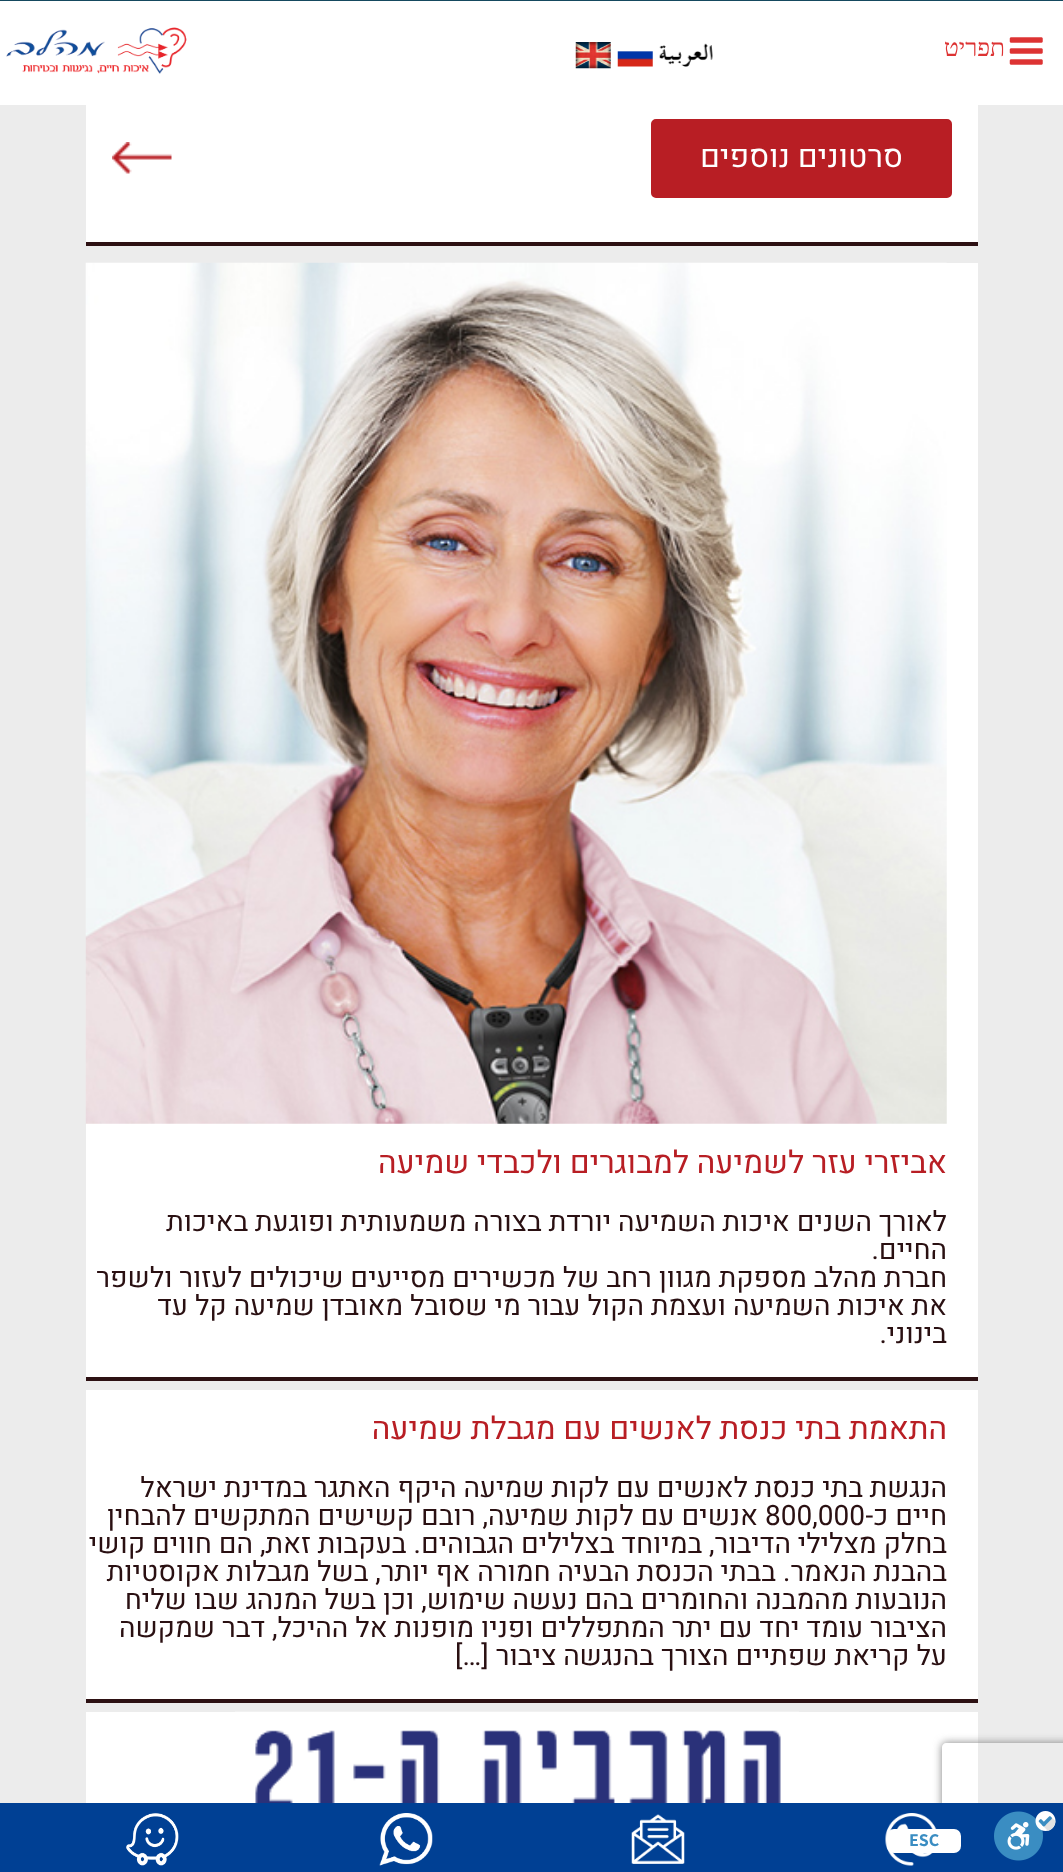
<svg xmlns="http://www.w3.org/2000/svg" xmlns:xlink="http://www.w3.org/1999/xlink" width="1063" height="1872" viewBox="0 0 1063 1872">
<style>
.cls-1{font:24.5px Liberation Serif;direction:rtl;fill:#dd3333}
.cls-2{font:31.5px Heebo;direction:rtl;fill:#ffffff}
.cls-3{font:31.5px Heebo;direction:rtl;fill:#b81e24}
.cls-4{font:28px Heebo;direction:rtl;fill:#2a1012}
.cls-5{font:28px Heebo;fill:#2a1012}
.cls-6{font:bold 18px Assistant;fill:#3a8dc2}
</style>
<defs>
<clipPath id="clip1"><path d="M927 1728H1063V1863H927ZM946 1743H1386C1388 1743 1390 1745 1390 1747V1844C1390 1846 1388 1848 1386 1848H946C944 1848 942 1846 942 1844V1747C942 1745 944 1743 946 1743Z" clip-rule="evenodd"/></clipPath>
</defs>
<rect width="100%" height="100%" fill="#ececec"/>
<rect fill="#ffffff" x="0" y="1" width="1063" height="104"/>
<image xlink:href="image0.png" x="1009" y="37" width="34" height="28"/>
<image xlink:href="image1.png" x="6" y="27" width="181" height="47"/>
<image xlink:href="image2.png" x="659" y="43" width="54" height="24"/>
<image xlink:href="image3.png" x="617" y="51" width="36" height="16"/>
<image xlink:href="image4.png" x="575" y="42" width="36" height="27"/>
<rect fill="#ffffff" x="86" y="105" width="892" height="137"/>
<rect fill="#2d1113" x="86" y="242" width="892" height="4"/>
<rect fill="#b81e24" stroke="#b81e24" stroke-width="2" x="652" y="120" width="299" height="77" rx="4"/>
<image xlink:href="image5.png" x="112" y="142" width="60" height="32"/>
<rect fill="#ffffff" x="86" y="263" width="892" height="1114"/>
<rect fill="#2d1113" x="86" y="1377" width="892" height="4"/>
<image xlink:href="image6.png" x="85" y="262" width="862" height="862"/>
<rect fill="#ffffff" x="86" y="1390" width="892" height="309"/>
<rect fill="#2d1113" x="86" y="1699" width="892" height="4"/>
<rect fill="#ffffff" x="86" y="1712" width="892" height="91"/>
<image xlink:href="image7.png" x="235" y="1711" width="564" height="92"/>
<g clip-path="url(#clip1)">
<rect fill="#808080" filter="blur(4.5px)" x="942" y="1743" width="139" height="105" rx="4"/>
</g>
<rect fill="#004094" x="0" y="1803" width="1063" height="69"/>
<image xlink:href="image8.png" x="885" y="1813" width="52" height="53"/>
<image xlink:href="image9.png" x="631" y="1814" width="54" height="50"/>
<image xlink:href="image10.png" x="379" y="1813" width="54" height="53"/>
<image xlink:href="image11.png" x="126" y="1813" width="53" height="53"/>
<rect fill="#15495f" x="0" y="0" width="1063" height="1"/>
<image xlink:href="image12.png" x="994" y="1811" width="62" height="50"/>
<rect fill="#ffffff" x="887" y="1829" width="74" height="24" rx="7"/>
<text class="cls-1" x="1005" y="56">תפריט</text>
<text class="cls-2" x="903" y="167">סרטונים נוספים</text>
<text class="cls-3" x="947" y="1173">אביזרי עזר לשמיעה למבוגרים ולכבדי שמיעה</text>
<text class="cls-4"><tspan x="947" y="1231">לאורך השנים איכות השמיעה יורדת בצורה משמעותית ופוגעת באיכות</tspan><tspan x="947" y="1259">החיים.</tspan><tspan x="947" y="1287">חברת מהלב מספקת מגוון רחב של מכשירים מסייעים שיכולים לעזור ולשפר</tspan><tspan x="947" y="1315">את איכות השמיעה ועצמת הקול עבור מי שסובל מאובדן שמיעה קל עד</tspan><tspan x="947" y="1343">בינוני.</tspan></text>
<text class="cls-3" x="947" y="1439">התאמת בתי כנסת לאנשים עם מגבלת שמיעה</text>
<text class="cls-4"><tspan x="947" y="1497">הנגשת בתי כנסת לאנשים עם לקות שמיעה היקף האתגר במדינת ישראל</tspan><tspan x="947" y="1525">חיים כ-</tspan></text>
<text class="cls-5" x="765" y="1525">800,000</text>
<text class="cls-4" x="758" y="1525">אנשים עם לקות שמיעה, רובם קשישים המתקשים להבחין</text>
<text class="cls-4"><tspan x="947" y="1553">בחלק מצלילי הדיבור, במיוחד בצלילים הגבוהים. בעקבות זאת, הם חווים קושי</tspan><tspan x="947" y="1581">בהבנת הנאמר. בבתי הכנסת הבעיה חמורה אף יותר, בשל מגבלות אקוסטיות</tspan><tspan x="947" y="1609">הנובעות מהמבנה והחומרים בהם נעשה שימוש, וכן בשל המנהג שבו שליח</tspan><tspan x="947" y="1637">הציבור עומד יחד עם יתר המתפללים ופניו מופנות אל ההיכל, דבר שמקשה</tspan><tspan x="947" y="1665">על קריאת שפתיים הצורך בהנגשה ציבור […]</tspan></text>
<text class="cls-6" x="909" y="1846">ESC</text>
</svg>
